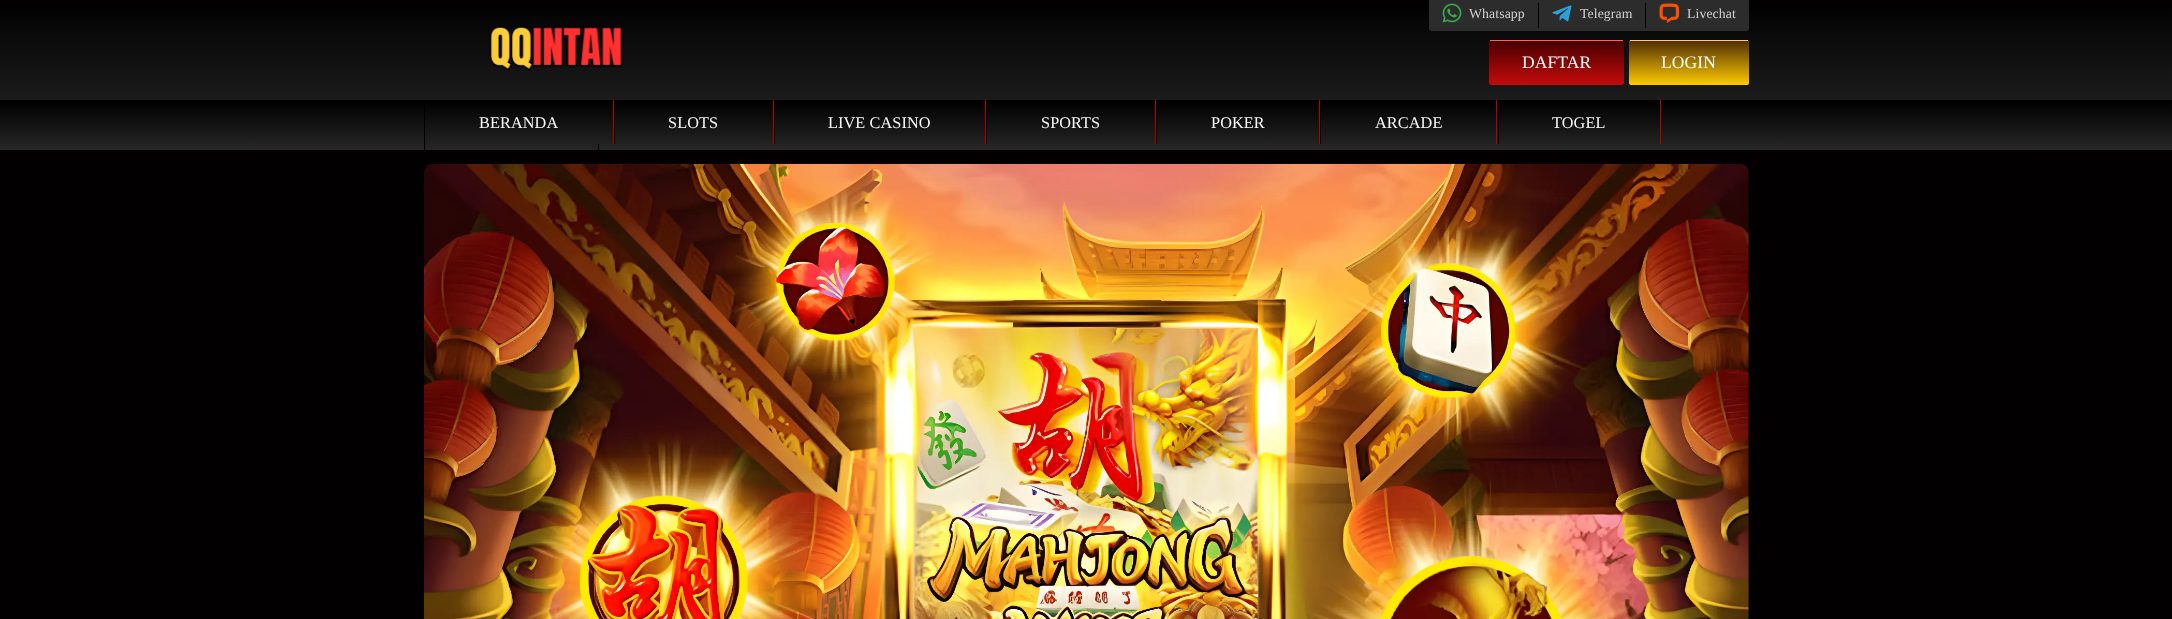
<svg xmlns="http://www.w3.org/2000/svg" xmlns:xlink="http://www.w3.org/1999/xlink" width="2172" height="619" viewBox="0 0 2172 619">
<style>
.cls-1{font:13.75px Liberation Serif;letter-spacing:0.1px;fill:#d1d1d1}
.cls-2{font:17.5px Liberation Serif;letter-spacing:0.1px;fill:#ffffff}
.cls-3{font:16.25px Liberation Serif;letter-spacing:0.1px;fill:#f8f8f8}
</style>
<defs>
<linearGradient id="g1" gradientUnits="userSpaceOnUse" x1="1086" y1="150" x2="1086" y2="0"><stop offset="0" stop-color="#000000"/><stop offset="0.16" stop-color="#232323"/><stop offset="1" stop-color="#000000"/></linearGradient>
<clipPath id="clip1"><rect x="1489" y="40" width="135" height="45" rx="2.5"/></clipPath>
<linearGradient id="g2" gradientUnits="userSpaceOnUse" x1="1556" y1="41" x2="1556" y2="85"><stop offset="0" stop-color="#490000"/><stop offset="1" stop-color="#c40b0b"/></linearGradient>
<clipPath id="clip2"><rect x="1629" y="40" width="120" height="45" rx="2.5"/></clipPath>
<linearGradient id="g3" gradientUnits="userSpaceOnUse" x1="1689" y1="41" x2="1689" y2="85"><stop offset="0" stop-color="#513005"/><stop offset="1" stop-color="#ffca00"/></linearGradient>
<linearGradient id="g4" gradientUnits="userSpaceOnUse" x1="1086" y1="100" x2="1086" y2="188"><stop offset="0" stop-color="#000000"/><stop offset="0.85" stop-color="#3b3939"/></linearGradient>
</defs>
<rect width="100%" height="100%" fill="#020000"/>
<rect fill="url(#g1)" x="0" y="9" width="2172" height="91"/>
<image xlink:href="image0.png" x="489" y="26" width="134" height="45"/>
<path fill="#2c2c2c" d="M1429 0H1749V28.5C1749 30 1748 31 1746.5 31H1431.5C1430 31 1429 30 1429 28.5Z"/>
<image xlink:href="image1.png" x="1442" y="3" width="20" height="20"/>
<rect fill="#000000" x="1645" y="3" width="1" height="25"/>
<rect fill="#000000" x="1538" y="3" width="1" height="25"/>
<image xlink:href="image2.png" x="1552" y="5" width="20" height="17"/>
<image xlink:href="image3.png" x="1659" y="3" width="21" height="20"/>
<rect fill="#8e0000" x="1489" y="40" width="135" height="45" rx="2.5"/>
<g clip-path="url(#clip1)">
<path fill="url(#g2)" d="M1489 41H1624V82.5C1624 84 1623 85 1621.5 85H1491.5C1490 85 1489 84 1489 82.5Z"/>
</g>
<rect fill="#ff6262" x="1490" y="40" width="133" height="1"/>
<rect fill="#ffca00" x="1629" y="40" width="120" height="45" rx="2.5"/>
<g clip-path="url(#clip2)">
<path fill="url(#g3)" d="M1629 41H1749V82.5C1749 84 1748 85 1746.5 85H1631.5C1630 85 1629 84 1629 82.5Z"/>
</g>
<rect fill="#fdcb87" x="1630" y="40" width="118" height="1"/>
<rect fill="url(#g4)" x="0" y="103" width="2172" height="47"/>
<rect fill="#b60000" x="613" y="100" width="1" height="44"/>
<rect fill="#000000" x="424" y="100" width="1" height="50"/>
<rect fill="#b60000" x="773" y="100" width="1" height="44"/>
<rect fill="#000000" x="614" y="100" width="1" height="44"/>
<rect fill="#b60000" x="985" y="100" width="1" height="44"/>
<rect fill="#000000" x="774" y="100" width="1" height="44"/>
<rect fill="#b60000" x="1155" y="100" width="1" height="44"/>
<rect fill="#000000" x="986" y="100" width="1" height="44"/>
<rect fill="#b60000" x="1319" y="100" width="1" height="44"/>
<rect fill="#000000" x="1156" y="100" width="1" height="44"/>
<rect fill="#b60000" x="1496" y="100" width="1" height="44"/>
<rect fill="#000000" x="1320" y="100" width="1" height="44"/>
<rect fill="#b60000" x="1660" y="100" width="1" height="44"/>
<rect fill="#000000" x="1498" y="100" width="1" height="44"/>
<rect fill="#000305" x="598" y="144" width="1" height="6"/>
<image xlink:href="image4.png" x="423" y="163" width="1326" height="456"/>
<text class="cls-1" x="1469" y="18">Whatsapp</text>
<text class="cls-1" x="1580" y="18">Telegram</text>
<text class="cls-1" x="1687" y="18">Livechat</text>
<text class="cls-2" x="1522" y="68">DAFTAR</text>
<text class="cls-2" x="1661" y="68">LOGIN</text>
<text class="cls-3" x="479" y="128">BERANDA</text>
<text class="cls-3" x="668" y="128">SLOTS</text>
<text class="cls-3" x="828" y="128">LIVE CASINO</text>
<text class="cls-3" x="1041" y="128">SPORTS</text>
<text class="cls-3" x="1211" y="128">POKER</text>
<text class="cls-3" x="1375" y="128">ARCADE</text>
<text class="cls-3" x="1552" y="128">TOGEL</text>
</svg>
